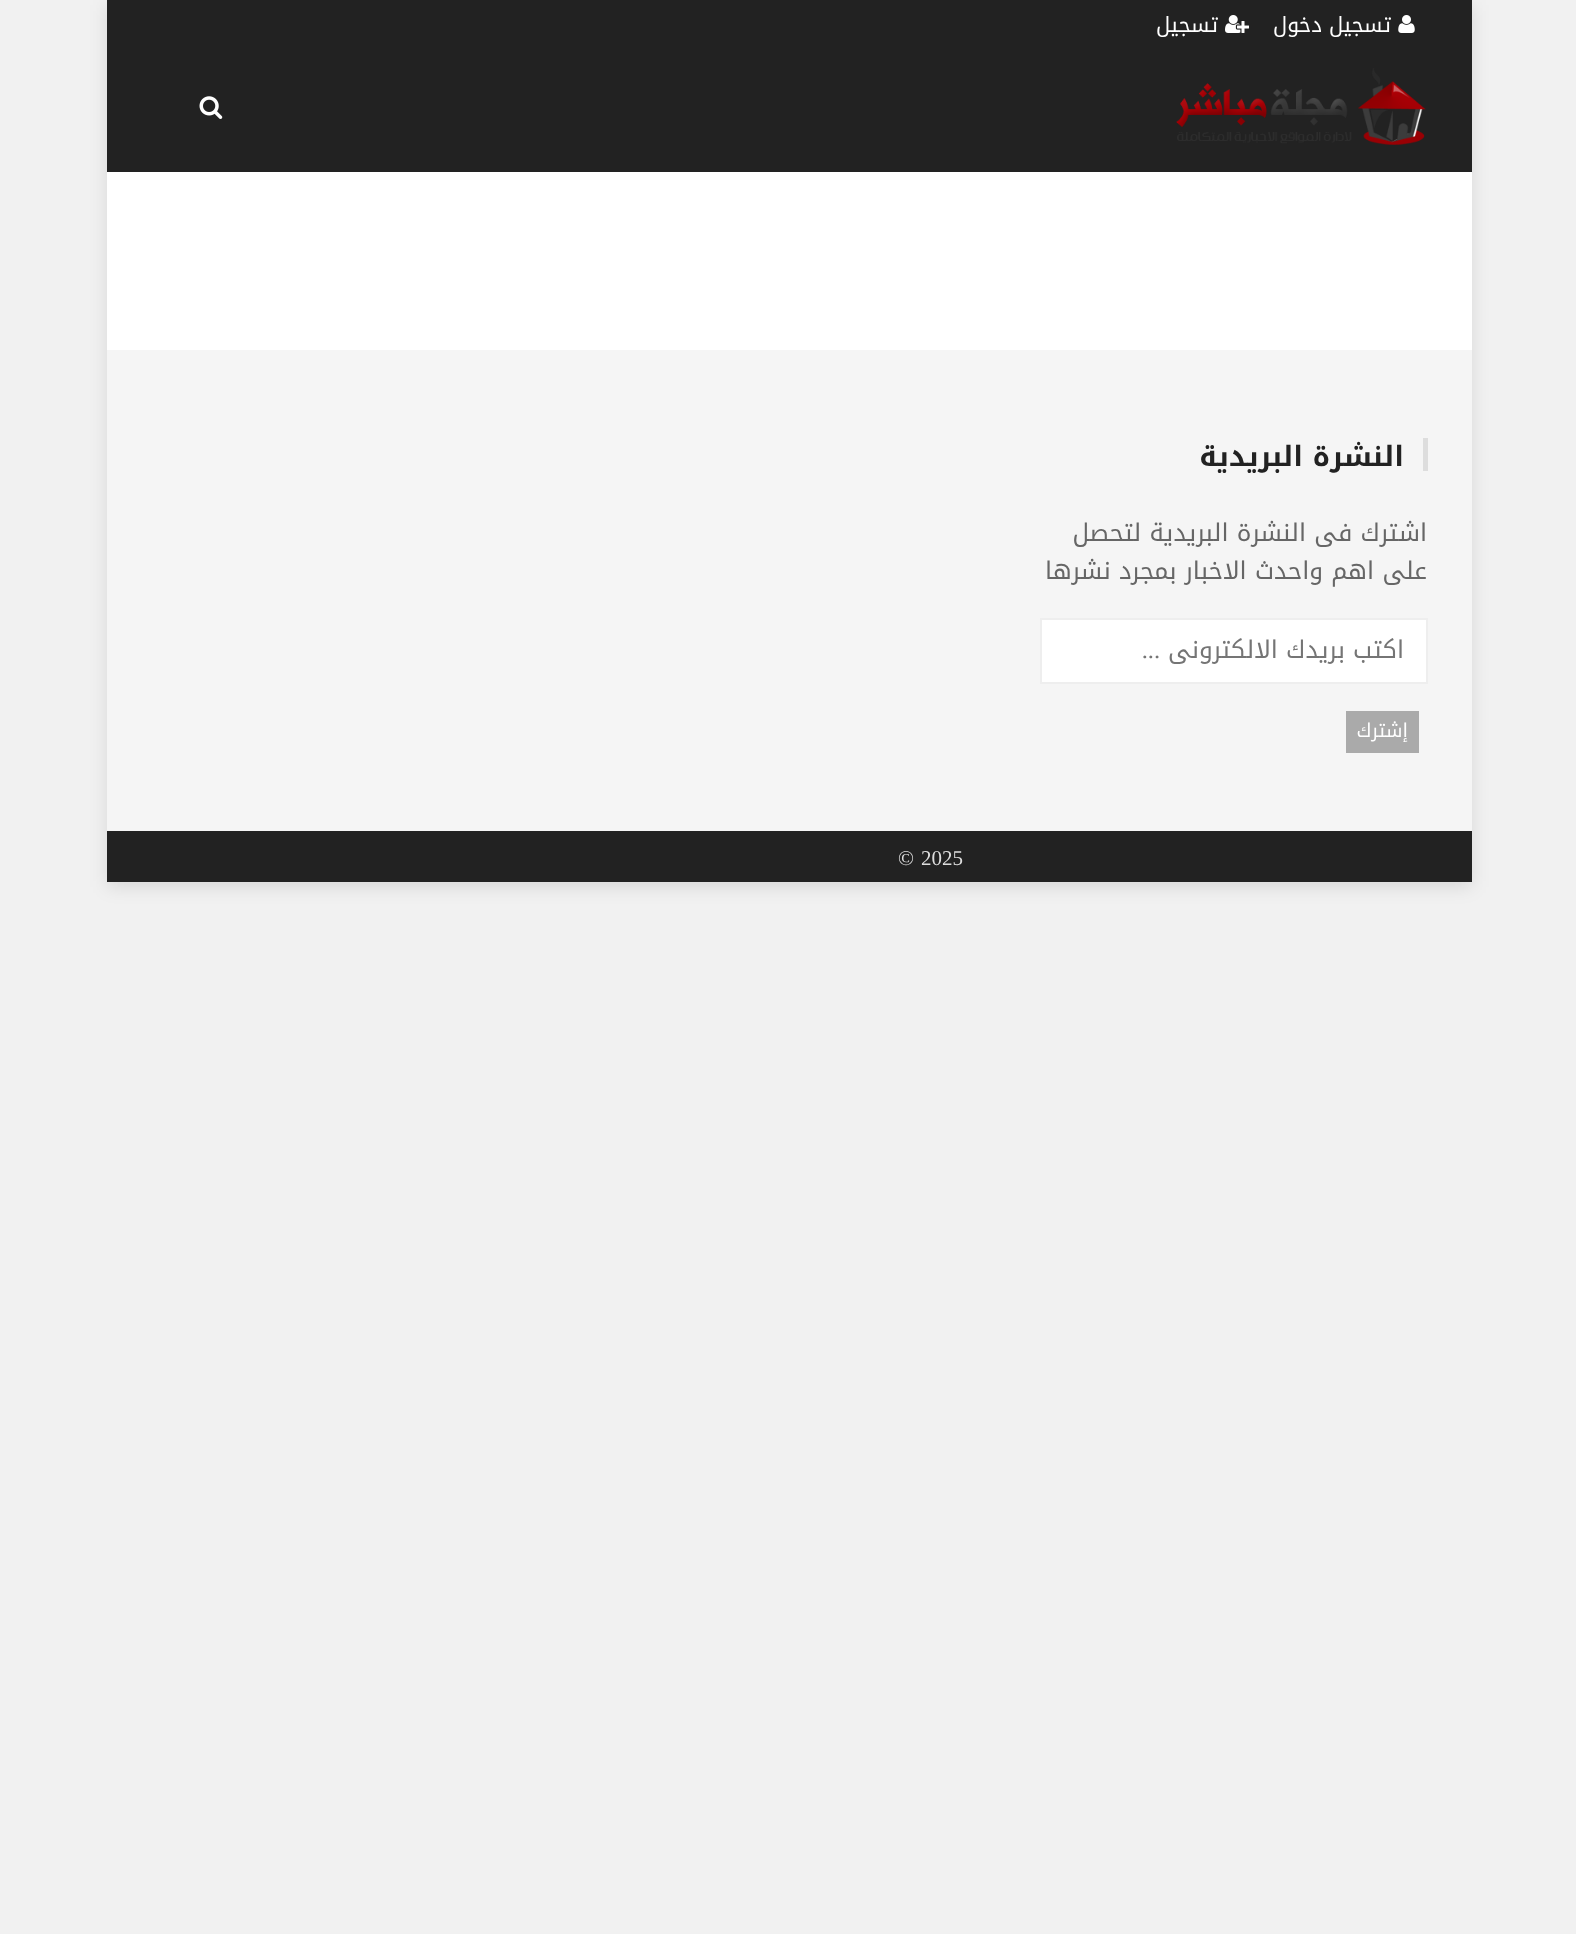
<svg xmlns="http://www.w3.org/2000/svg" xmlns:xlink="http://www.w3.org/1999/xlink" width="1576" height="1934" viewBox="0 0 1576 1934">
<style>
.cls-1{font:21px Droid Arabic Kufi;direction:rtl;fill:#ffffff}
.cls-2{font:bold 28px Droid Arabic Kufi;direction:rtl;fill:#222222}
.cls-3{font:24.5px Droid Arabic Kufi;direction:rtl;fill:#666666}
.cls-4{font:24.5px Droid Arabic Kufi;direction:rtl;fill:#757575}
.cls-5{font:24.5px Liberation Serif;direction:rtl;fill:#757575}
.cls-6{font:19px Droid Arabic Kufi;direction:rtl;fill:#ffffff}
.cls-7{font:21px Liberation Serif;fill:#dddddd}
</style>
<rect width="100%" height="100%" fill="#f1f1f1"/>
<rect fill="#000000" fill-opacity="0.1" filter="blur(9px)" x="107" y="5" width="1365" height="882"/>
<rect fill="#ffffff" x="107" y="172" width="1365" height="178"/>
<rect fill="#222222" x="107" y="0" width="1365" height="172"/>
<image xlink:href="image0.png" x="1398" y="15" width="17" height="18"/>
<image xlink:href="image1.png" x="1225" y="15" width="24" height="18"/>
<image xlink:href="image2.png" x="1176" y="68" width="250" height="77"/>
<image xlink:href="image3.png" x="199" y="96" width="24" height="23"/>
<rect fill="#f5f5f5" x="107" y="350" width="1365" height="481"/>
<rect fill="#dddddd" x="1423" y="438" width="5" height="33"/>
<rect fill="#ffffff" stroke="#eeeeee" stroke-width="2" x="1041" y="619" width="386" height="64"/>
<rect fill="#aaaaaa" x="1346" y="711" width="73" height="42"/>
<rect fill="#222222" x="107" y="831" width="1365" height="51"/>
<text class="cls-1" x="1391" y="32">تسجيل دخول</text>
<text class="cls-1" x="1218" y="32">تسجيل</text>
<text class="cls-2" x="1404" y="466">النشرة البريدية</text>
<text class="cls-3"><tspan x="1427" y="541">اشترك فى النشرة البريدية لتحصل</tspan><tspan x="1427" y="579">على اهم واحدث الاخبار بمجرد نشرها</tspan></text>
<text class="cls-4" x="1404" y="658">اكتب بريدك الالكترونى</text>
<text class="cls-5" x="1160" y="658">...</text>
<text class="cls-6" x="1408" y="737">إشترك</text>
<text class="cls-7" x="921" y="865">2025</text>
<text class="cls-7" x="898" y="865">©</text>
</svg>
